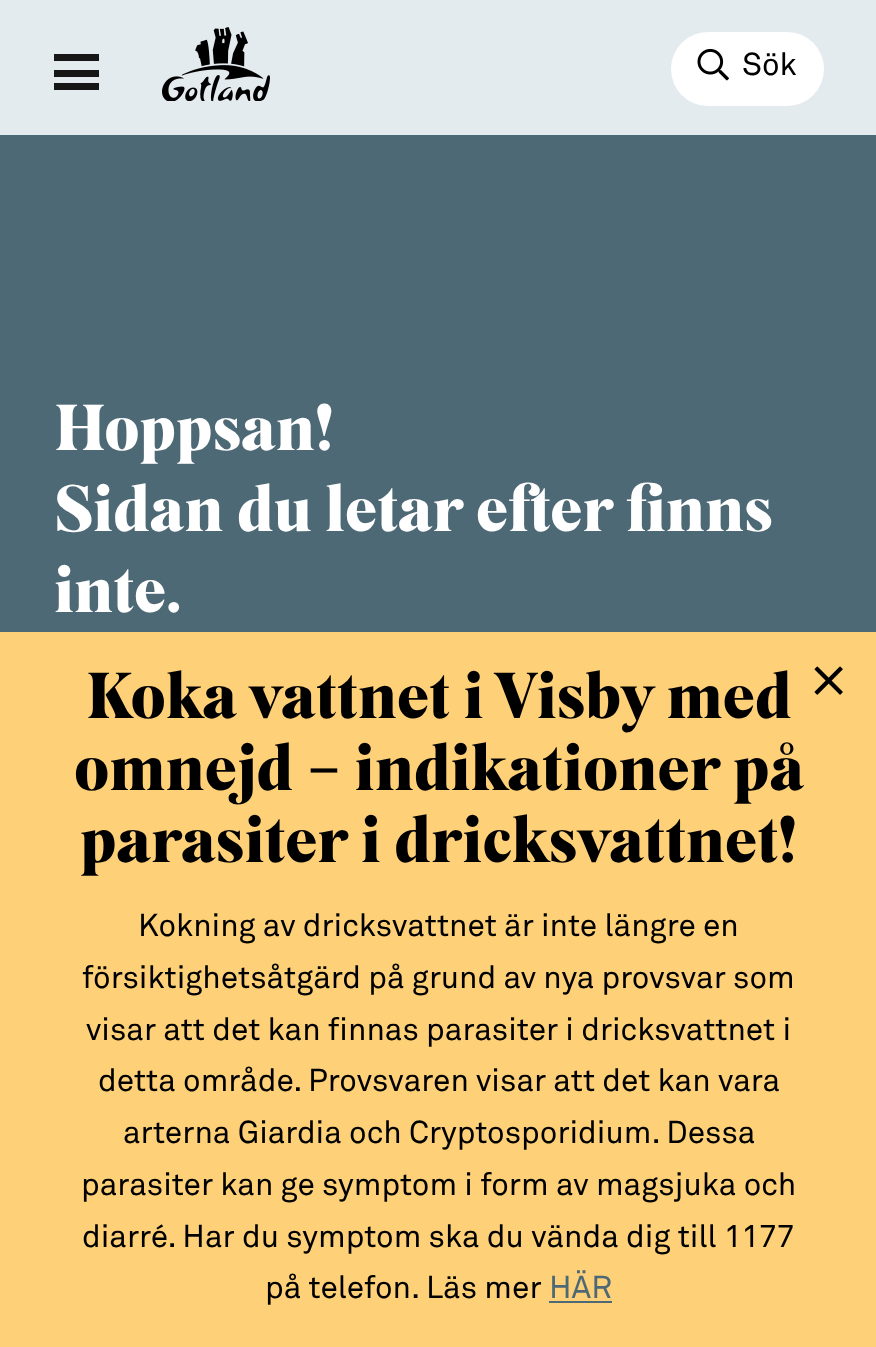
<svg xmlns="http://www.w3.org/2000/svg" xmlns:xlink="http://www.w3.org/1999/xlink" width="876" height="1347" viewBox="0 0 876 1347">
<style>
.cls-1{font:31.5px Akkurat;fill:#000000}
.cls-2{font:63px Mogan;fill:#ffffff}
.cls-3{font:63px Mogan;fill:#000000}
.cls-4{font:31.5px Akkurat;fill:#4e6976}
</style>
<rect width="100%" height="100%" fill="#4e6976"/>
<rect fill="#e4ebef" x="0" y="0" width="876" height="135"/>
<rect fill="#171717" x="54" y="54" width="45" height="7"/>
<rect fill="#171717" x="54" y="70" width="45" height="7"/>
<rect fill="#171717" x="54" y="83" width="45" height="7"/>
<image xlink:href="image0.png" x="162" y="27" width="108" height="74"/>
<rect fill="#ffffff" x="671" y="32" width="153" height="74" rx="37"/>
<image xlink:href="image1.png" x="697" y="48" width="32" height="33"/>
<rect fill="#fed078" x="0" y="632" width="876" height="715"/>
<rect fill="#4e6976" x="549" y="1301" width="63" height="2"/>
<image xlink:href="image2.png" x="814" y="666" width="29" height="29"/>
<text class="cls-1" x="742" y="75">Sök</text>
<text class="cls-2"><tspan x="54" y="450">Hoppsan!</tspan><tspan x="54" y="531">Sidan du letar efter finns</tspan><tspan x="54" y="612">inte.</tspan></text>
<text class="cls-3" x="86" y="718">Koka vattnet i Visby med</text>
<text class="cls-3" x="74" y="790">omnejd – indikationer på</text>
<text class="cls-3" x="80" y="862">parasiter i dricksvattnet!</text>
<text class="cls-1" x="138" y="936">Kokning av dricksvattnet är inte längre en</text>
<text class="cls-1" x="82" y="988">försiktighetsåtgärd på grund av nya provsvar som</text>
<text class="cls-1" x="86" y="1040">visar att det kan finnas parasiter i dricksvattnet i</text>
<text class="cls-1" x="98" y="1091">detta område. Provsvaren visar att det kan vara</text>
<text class="cls-1" x="123" y="1143">arterna Giardia och Cryptosporidium. Dessa</text>
<text class="cls-1" x="81" y="1195">parasiter kan ge symptom i form av magsjuka och</text>
<text class="cls-1" x="82" y="1247">diarré. Har du symptom ska du vända dig till 1177</text>
<text class="cls-1" x="265" y="1298">på telefon. Läs mer</text>
<text class="cls-4" x="549" y="1298">HÄR</text>
</svg>
